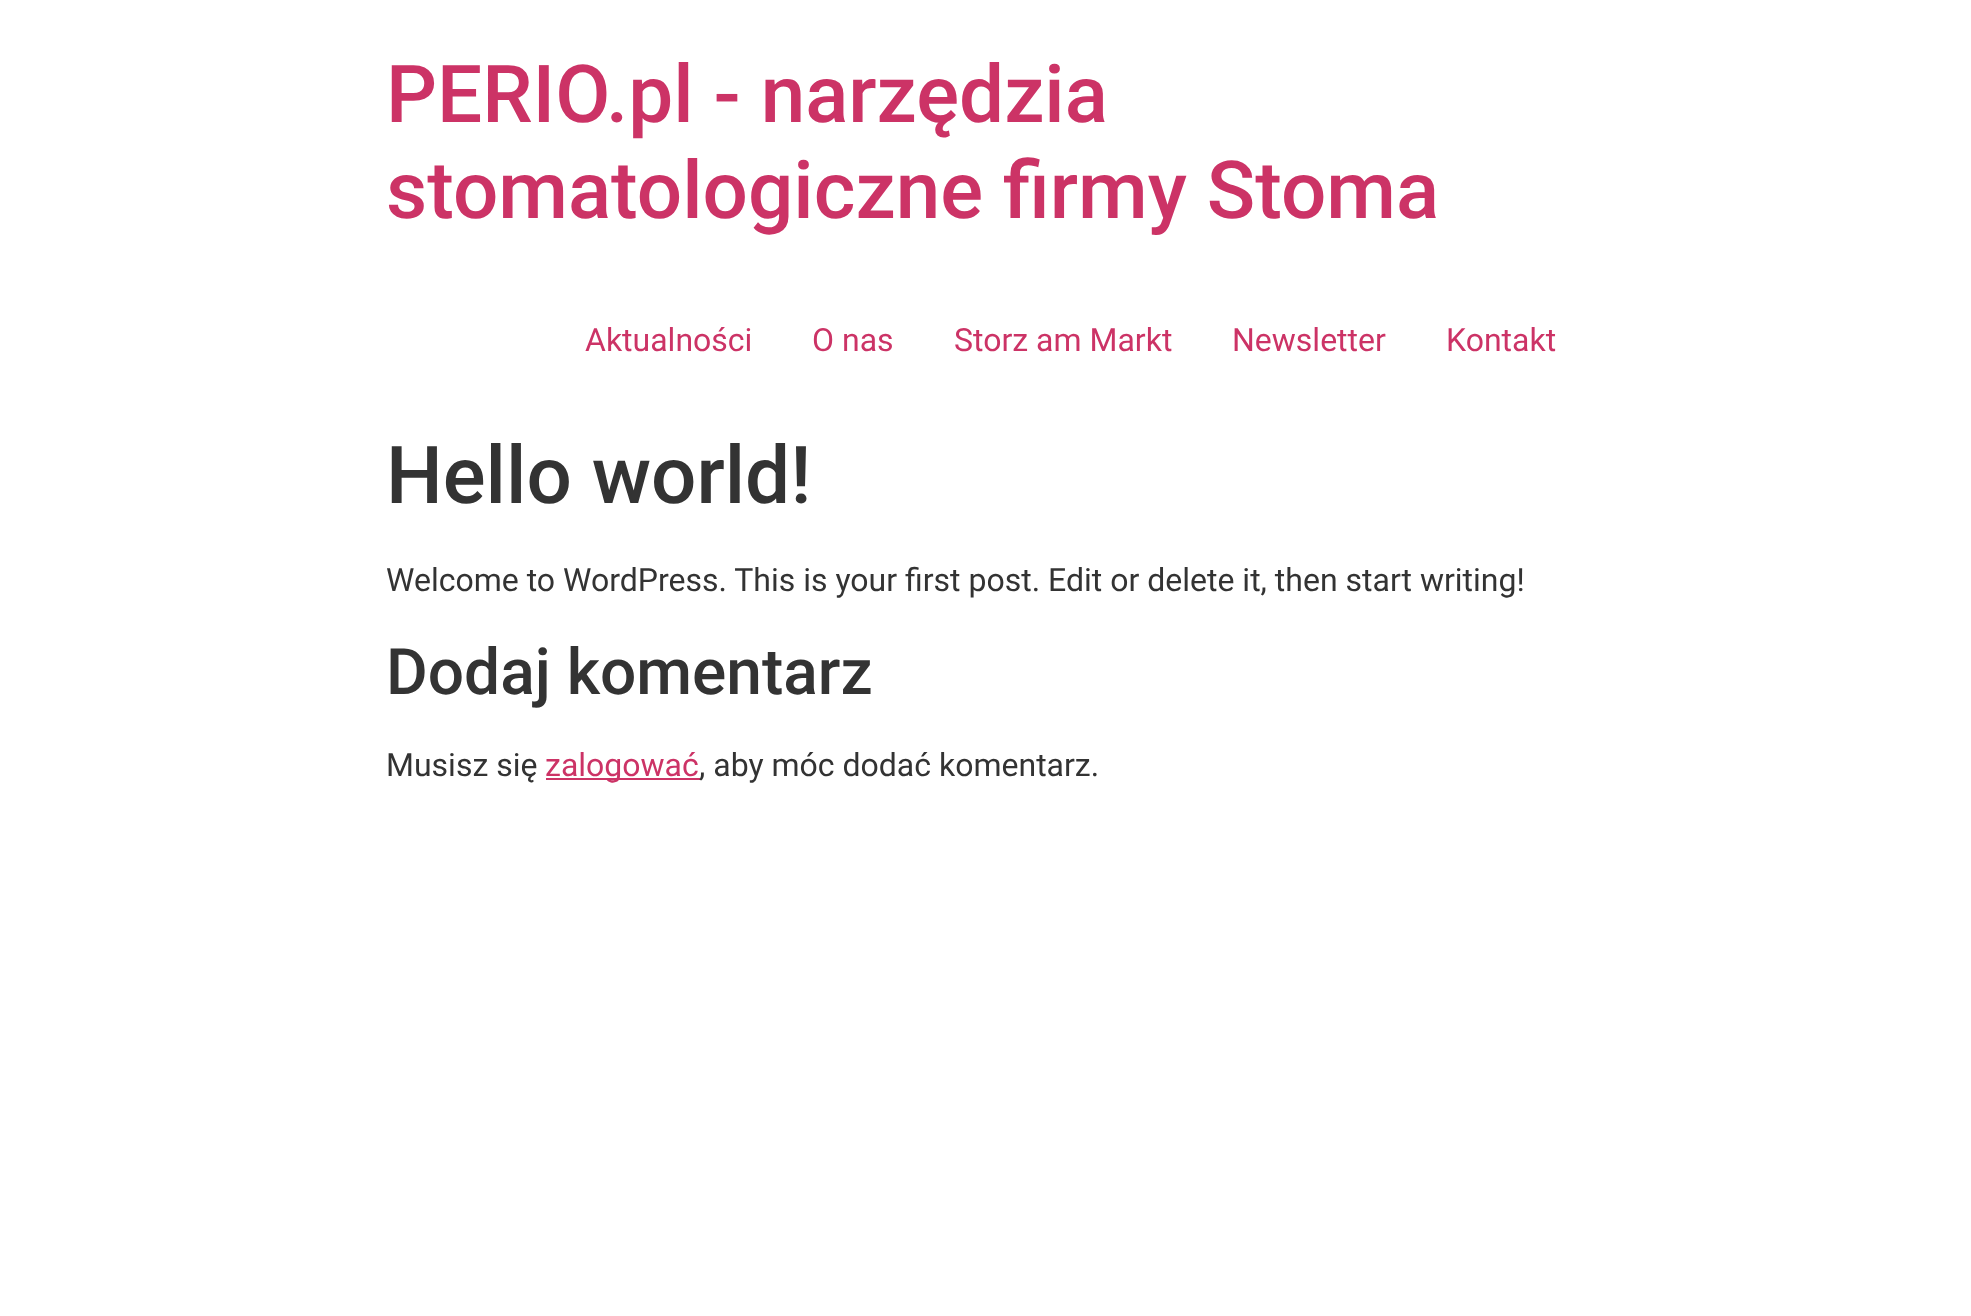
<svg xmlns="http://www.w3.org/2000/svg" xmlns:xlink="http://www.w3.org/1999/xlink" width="1971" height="1316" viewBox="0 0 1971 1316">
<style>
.cls-1{font:500 80px Roboto;fill:#cc3366}
.cls-2{font:32px Roboto;fill:#cc3366}
.cls-3{font:500 80px Roboto;fill:#333333}
.cls-4{font:32px Roboto;fill:#333333}
.cls-5{font:500 64px Roboto;fill:#333333}
</style>
<rect width="100%" height="100%" fill="#ffffff"/>
<rect fill="#cc3366" x="546" y="778" width="154" height="2"/>
<text class="cls-1"><tspan x="386" y="122">PERIO.pl - narzędzia</tspan><tspan x="386" y="218">stomatologiczne firmy Stoma</tspan></text>
<text class="cls-2" x="585" y="351">Aktualności</text>
<text class="cls-2" x="812" y="351">O nas</text>
<text class="cls-2" x="954" y="351">Storz am Markt</text>
<text class="cls-2" x="1232" y="351">Newsletter</text>
<text class="cls-2" x="1446" y="351">Kontakt</text>
<text class="cls-3" x="386" y="503">Hello world!</text>
<text class="cls-4" x="386" y="591">Welcome to WordPress. This is your first post. Edit or delete it, then start writing!</text>
<text class="cls-5" x="386" y="694">Dodaj komentarz</text>
<text class="cls-4" x="386" y="776">Musisz się</text>
<text class="cls-2" x="545" y="776">zalogować</text>
<text class="cls-4" x="699" y="776">, aby móc dodać komentarz.</text>
</svg>
